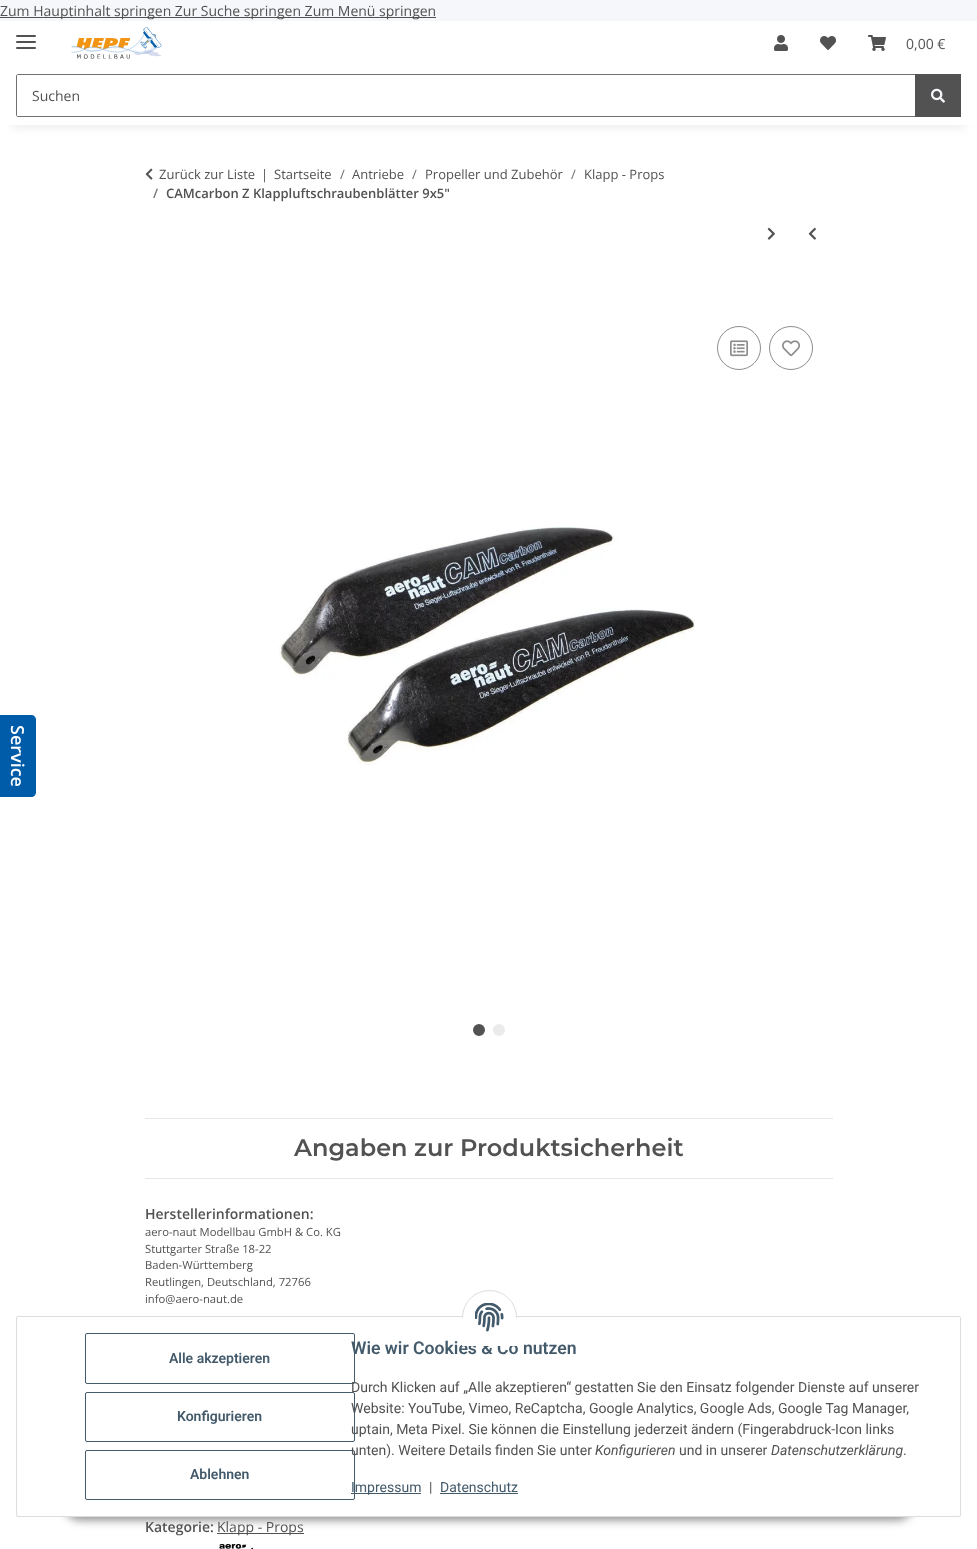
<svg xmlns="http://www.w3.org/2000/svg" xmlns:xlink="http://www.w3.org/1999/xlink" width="977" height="1549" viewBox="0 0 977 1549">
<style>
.cls-1{font:14px Open Sans;fill:#525252}
.cls-2{font:600 18px Open Sans;fill:#ffffff}
.cls-3{font:13px Open Sans;fill:#525252}
.cls-4{font:13px Open Sans;fill:#707070}
.cls-5{font:600 13px Open Sans;fill:#707070}
.cls-6{font:600 13px Open Sans;fill:#525252}
.cls-7{font:600 24px Montserrat;fill:#525252}
.cls-8{font:600 14px Open Sans;fill:#525252}
.cls-9{font:11.25px Open Sans;fill:#525252}
.cls-10{font:600 14px Roboto;fill:#435a6b}
.cls-11{font:600 17.6px Roboto;fill:#435a6b}
.cls-12{font:14px Roboto;fill:#525252}
.cls-13{font:italic 14px Roboto;fill:#525252}
.cls-14{font:14px Roboto;fill:#435a6b}
</style>
<rect width="100%" height="100%" fill="#f5f7fa"/>
<rect fill="#525252" x="0" y="17" width="436" height="1"/>
<rect fill="#ffffff" x="0" y="125" width="977" height="1424"/>
<rect fill="#000000" fill-opacity="0.06" filter="blur(4.5px)" x="12" y="49" width="953" height="80"/>
<rect fill="#ffffff" x="0" y="21" width="977" height="104"/>
<rect fill="#525252" x="16" y="41" width="20" height="2" rx="1"/>
<rect fill="#525252" x="16" y="35" width="20" height="2" rx="1"/>
<rect fill="#525252" x="16" y="47" width="20" height="2" rx="1"/>
<image xlink:href="image0.png" x="71" y="27" width="91" height="32"/>
<image xlink:href="image1.png" x="774" y="35" width="14" height="16"/>
<image xlink:href="image2.png" x="820" y="36" width="16" height="14"/>
<image xlink:href="image3.png" x="868" y="35" width="18" height="16"/>
<path fill="none" stroke="#707070" d="M18 74.5H915.5V116.5H18C17 116.5 16.5 116 16.5 115V76C16.5 75 17 74.5 18 74.5Z"/>
<rect fill="#525252" x="915" y="74" width="46" height="43"/>
<image xlink:href="image4.png" x="931" y="88" width="14" height="15"/>
<path fill="#005ca9" d="M36 720V792C36 795 34 797 31 797H-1V715H31C34 715 36 717 36 720Z"/>
<image xlink:href="image5.png" x="145" y="168" width="8" height="12"/>
<image xlink:href="image6.png" x="767" y="227" width="8" height="13"/>
<image xlink:href="image7.png" x="808" y="227" width="8" height="13"/>
<circle fill="none" stroke="#8d8d8d" cx="739" cy="348" r="21.5"/>
<image xlink:href="image8.png" x="730" y="340" width="18" height="17"/>
<circle fill="none" stroke="#8d8d8d" cx="791" cy="348" r="21.5"/>
<image xlink:href="image9.png" x="782" y="340" width="18" height="17"/>
<image xlink:href="image10.png" x="279" y="526" width="416" height="239"/>
<circle fill="#525252" stroke="#525252" stroke-width="2" cx="479" cy="1030" r="5"/>
<circle fill="#ebebeb" stroke="#ebebeb" stroke-width="2" cx="499" cy="1030" r="5"/>
<rect fill="#e6e6e6" x="145" y="1118" width="688" height="1"/>
<rect fill="#e6e6e6" x="145" y="1178" width="688" height="1"/>
<rect fill="#525252" x="217" y="1533" width="87" height="1"/>
<image xlink:href="image11.png" x="219" y="1544" width="35" height="5"/>
<rect fill="#000000" fill-opacity="0.45" filter="blur(5px)" x="64" y="1488" width="849" height="32" rx="16"/>
<rect fill="#ffffff" stroke="#dddddd" x="16.5" y="1316.5" width="944" height="200" rx="1.5"/>
<rect fill="none" stroke="#435a6b" x="85.5" y="1333.5" width="269" height="50" rx="1.5"/>
<rect fill="none" stroke="#435a6b" x="85.5" y="1392.5" width="269" height="49" rx="1.5"/>
<rect fill="none" stroke="#435a6b" x="85.5" y="1450.5" width="269" height="49" rx="1.5"/>
<rect fill="#435a6b" x="351" y="1493" width="70" height="1"/>
<rect fill="#435a6b" x="440" y="1493" width="78" height="1"/>
<text class="cls-1" x="0" y="16">Zum Hauptinhalt springen Zur Suche springen Zum Menü springen</text>
<text class="cls-1" x="906" y="49">0,00 €</text>
<text class="cls-1" x="32" y="101">Suchen</text>
<text class="cls-2" x="11" y="725" transform="rotate(90 11 725)">Service</text>
<text class="cls-3" x="159" y="179">Zurück zur Liste</text>
<text class="cls-3" x="261" y="179">|</text>
<text class="cls-3" x="274" y="179">Startseite</text>
<text class="cls-4" x="340" y="179">/</text>
<text class="cls-3" x="352" y="179">Antriebe</text>
<text class="cls-4" x="412" y="179">/</text>
<text class="cls-3" x="425" y="179">Propeller und Zubehör</text>
<text class="cls-4" x="571" y="179">/</text>
<text class="cls-3" x="584" y="179">Klapp - Props</text>
<text class="cls-5" x="153" y="198">/</text>
<text class="cls-6" x="166" y="198">CAMcarbon Z Klappluftschraubenblätter 9x5"</text>
<text class="cls-7" x="294" y="1156">Angaben zur Produktsicherheit</text>
<text class="cls-8" x="145" y="1219">Herstellerinformationen:</text>
<text class="cls-9"><tspan x="145" y="1236">aero-naut Modellbau GmbH &amp; Co. KG</tspan><tspan x="145" y="1253">Stuttgarter Straße 18-22</tspan><tspan x="145" y="1269">Baden-Württemberg</tspan><tspan x="145" y="1286">Reutlingen, Deutschland, 72766</tspan><tspan x="145" y="1303">info@aero-naut.de</tspan></text>
<text class="cls-8" x="145" y="1532">Kategorie:</text>
<text class="cls-1" x="217" y="1532">Klapp - Props</text>
<text class="cls-10" x="169" y="1363">Alle akzeptieren</text>
<text class="cls-10" x="177" y="1421">Konfigurieren</text>
<text class="cls-10" x="190" y="1479">Ablehnen</text>
<text class="cls-11" x="351" y="1354">Wie wir Cookies &amp; Co nutzen</text>
<circle fill="#ffffff" stroke="#dddddd" cx="489.5" cy="1317.5" r="27"/>
<rect fill="#ffffff" x="462" y="1318" width="55" height="28"/>
<image xlink:href="image12.png" x="475" y="1303" width="29" height="29"/>
<text class="cls-12"><tspan x="351" y="1392">Durch Klicken auf „Alle akzeptieren“ gestatten Sie den Einsatz folgender Dienste auf unserer</tspan><tspan x="351" y="1413">Website: YouTube, Vimeo, ReCaptcha, Google Analytics, Google Ads, Google Tag Manager,</tspan><tspan x="351" y="1434">uptain, Meta Pixel. Sie können die Einstellung jederzeit ändern (Fingerabdruck-Icon links</tspan><tspan x="351" y="1455">unten). Weitere Details finden Sie unter</tspan></text>
<text class="cls-13" x="595" y="1455">Konfigurieren</text>
<text class="cls-12" x="679" y="1455">und in unserer</text>
<text class="cls-13" x="771" y="1455">Datenschutzerklärung</text>
<text class="cls-12" x="903" y="1455">.</text>
<text class="cls-14" x="351" y="1492">Impressum</text>
<text class="cls-12" x="429" y="1492">|</text>
<text class="cls-14" x="440" y="1492">Datenschutz</text>
</svg>
